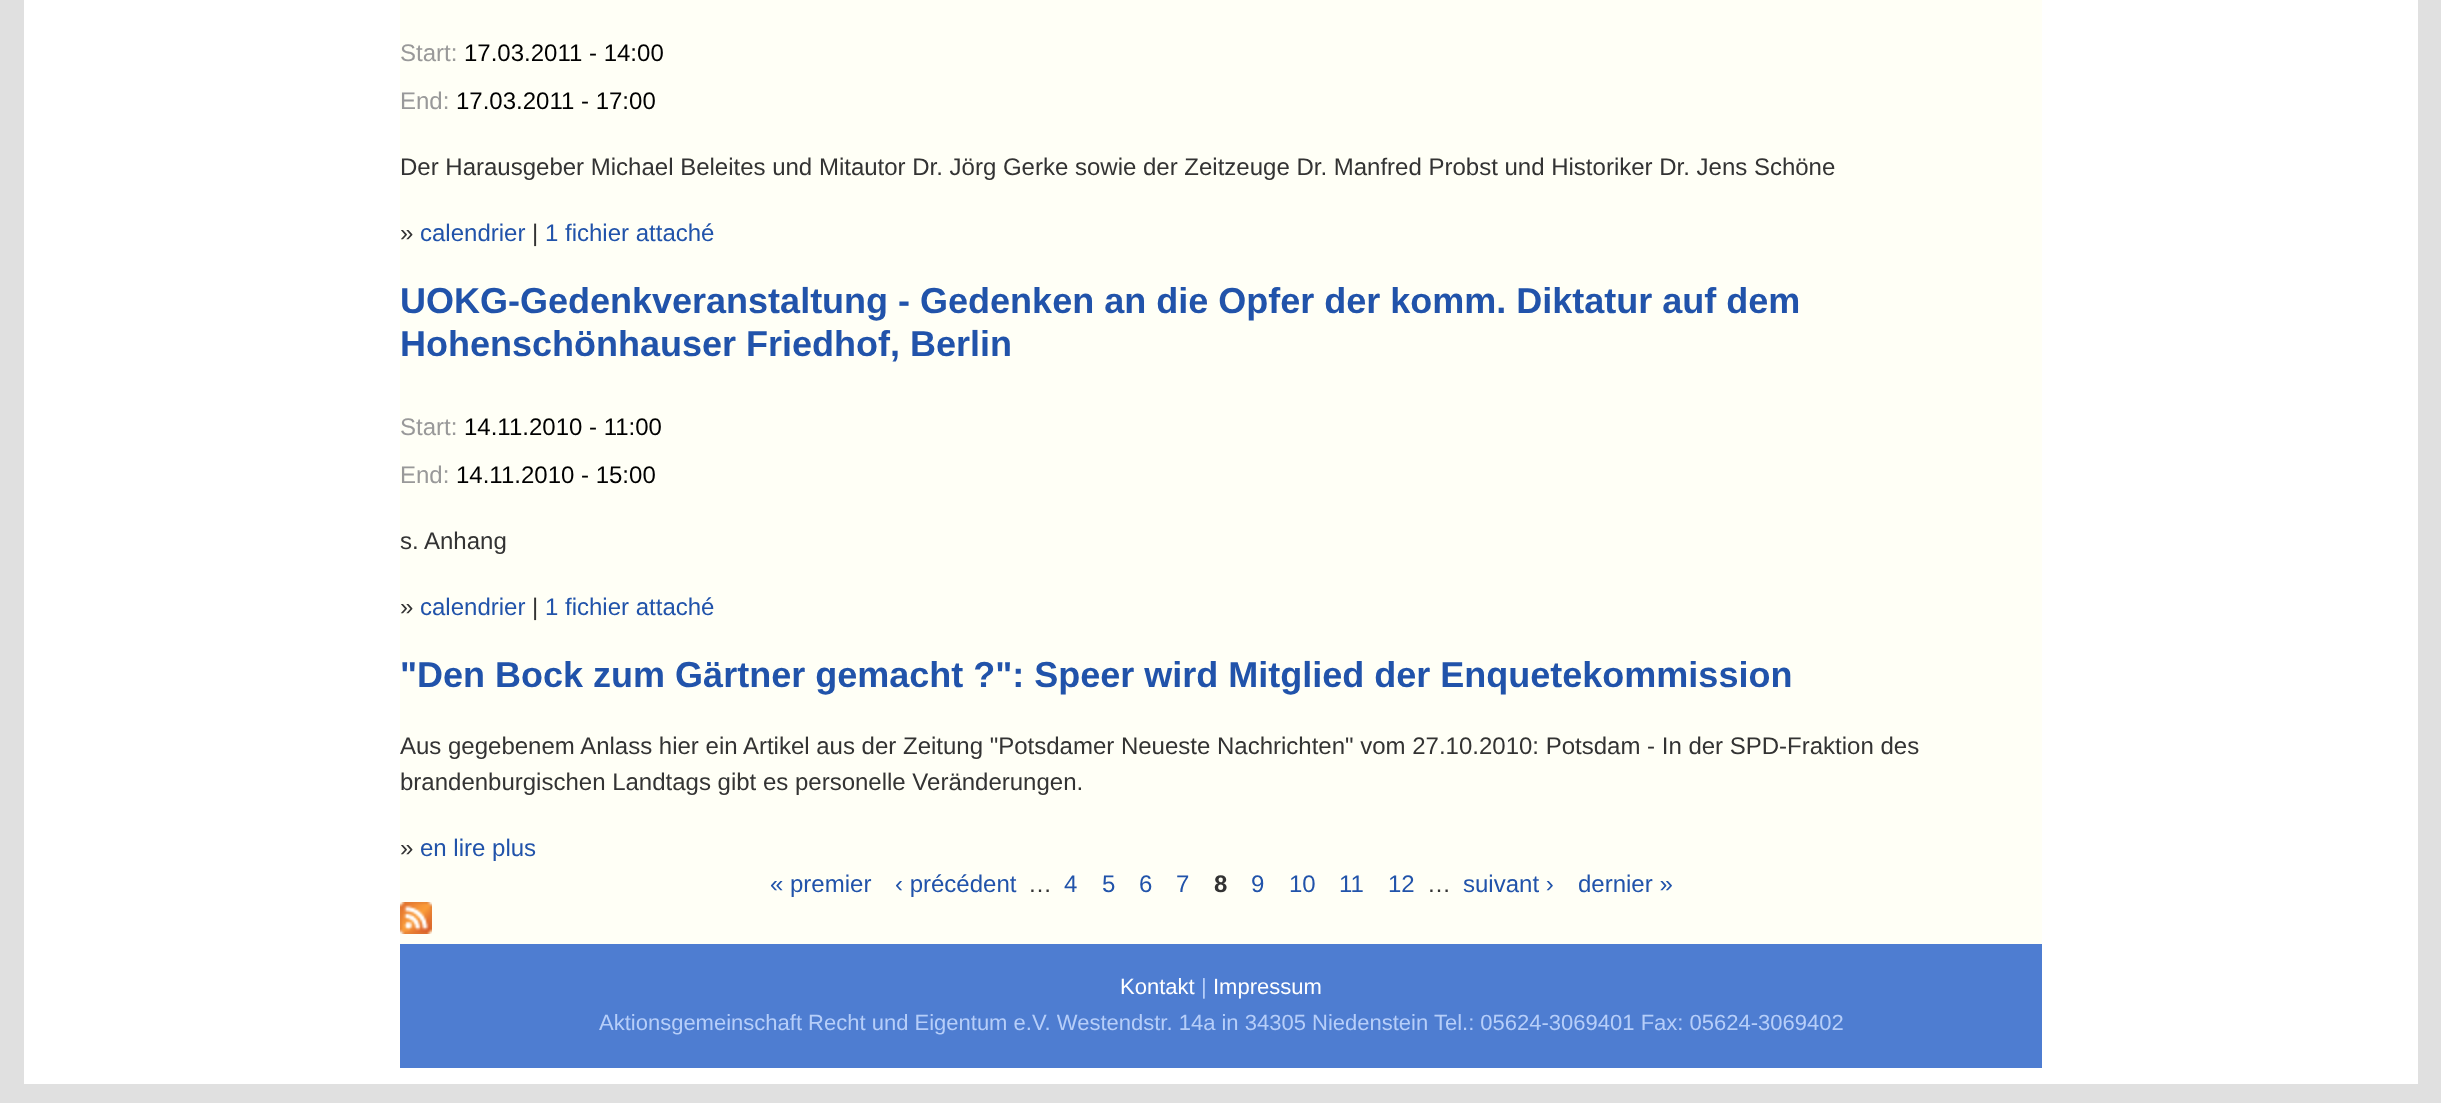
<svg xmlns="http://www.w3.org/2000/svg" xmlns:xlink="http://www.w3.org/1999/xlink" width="2441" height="1103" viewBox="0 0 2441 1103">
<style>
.cls-1{font:24px Liberation Sans;fill:#999999}
.cls-2{font:24px Liberation Sans;fill:#000000}
.cls-3{font:24px Liberation Sans;fill:#333333}
.cls-4{font:24px Liberation Sans;fill:#2153aa}
.cls-5{font:bold 36px Liberation Sans;fill:#2153aa}
.cls-6{font:bold 24px Liberation Sans;fill:#333333}
.cls-7{font:22px Liberation Sans;fill:#ffffff}
.cls-8{font:22px Liberation Sans;fill:#b6cef9}
</style>
<rect width="100%" height="100%" fill="#e0e0e0"/>
<rect fill="#ffffff" x="24" y="0" width="2394" height="1084"/>
<rect fill="#fffff6" x="400" y="0" width="1642" height="944"/>
<image xlink:href="image0.png" x="400" y="902" width="32" height="32"/>
<rect fill="#4e7dd1" x="400" y="944" width="1642" height="124"/>
<text class="cls-1" x="400" y="61">Start:</text>
<text class="cls-2" x="464" y="61">17.03.2011 - 14:00</text>
<text class="cls-1" x="400" y="109">End:</text>
<text class="cls-2" x="456" y="109">17.03.2011 - 17:00</text>
<text class="cls-3" x="400" y="175">Der Harausgeber Michael Beleites und Mitautor Dr. Jörg Gerke sowie der Zeitzeuge Dr. Manfred Probst und Historiker Dr. Jens Schöne</text>
<text class="cls-3" x="400" y="241">»</text>
<text class="cls-4" x="420" y="241">calendrier</text>
<text class="cls-3" x="532" y="241">|</text>
<text class="cls-4" x="545" y="241">1 fichier attaché</text>
<text class="cls-5"><tspan x="400" y="313">UOKG-Gedenkveranstaltung - Gedenken an die Opfer der komm. Diktatur auf dem</tspan><tspan x="400" y="356">Hohenschönhauser Friedhof, Berlin</tspan></text>
<text class="cls-1" x="400" y="435">Start:</text>
<text class="cls-2" x="464" y="435">14.11.2010 - 11:00</text>
<text class="cls-1" x="400" y="483">End:</text>
<text class="cls-2" x="456" y="483">14.11.2010 - 15:00</text>
<text class="cls-3" x="400" y="549">s. Anhang</text>
<text class="cls-3" x="400" y="615">»</text>
<text class="cls-4" x="420" y="615">calendrier</text>
<text class="cls-3" x="532" y="615">|</text>
<text class="cls-4" x="545" y="615">1 fichier attaché</text>
<text class="cls-5" x="400" y="687">"Den Bock zum Gärtner gemacht ?": Speer wird Mitglied der Enquetekommission</text>
<text class="cls-3"><tspan x="400" y="754">Aus gegebenem Anlass hier ein Artikel aus der Zeitung "Potsdamer Neueste Nachrichten" vom 27.10.2010: Potsdam - In der SPD-Fraktion des</tspan><tspan x="400" y="790">brandenburgischen Landtags gibt es personelle Veränderungen.</tspan></text>
<text class="cls-3" x="400" y="856">»</text>
<text class="cls-4" x="420" y="856">en lire plus</text>
<text class="cls-4" x="770" y="892">« premier</text>
<text class="cls-4" x="895" y="892">‹ précédent</text>
<text class="cls-3" x="1028" y="892">…</text>
<text class="cls-4" x="1064" y="892">4</text>
<text class="cls-4" x="1102" y="892">5</text>
<text class="cls-4" x="1139" y="892">6</text>
<text class="cls-4" x="1176" y="892">7</text>
<text class="cls-6" x="1214" y="892">8</text>
<text class="cls-4" x="1251" y="892">9</text>
<text class="cls-4" x="1289" y="892">10</text>
<text class="cls-4" x="1339" y="892">11</text>
<text class="cls-4" x="1388" y="892">12</text>
<text class="cls-3" x="1427" y="892">…</text>
<text class="cls-4" x="1463" y="892">suivant ›</text>
<text class="cls-4" x="1578" y="892">dernier »</text>
<text class="cls-7" x="1120" y="994">Kontakt</text>
<text class="cls-8" x="1201" y="994">|</text>
<text class="cls-7" x="1213" y="994">Impressum</text>
<text class="cls-8" x="599" y="1030">Aktionsgemeinschaft Recht und Eigentum e.V. Westendstr. 14a in 34305 Niedenstein Tel.: 05624-3069401 Fax: 05624-3069402</text>
</svg>
